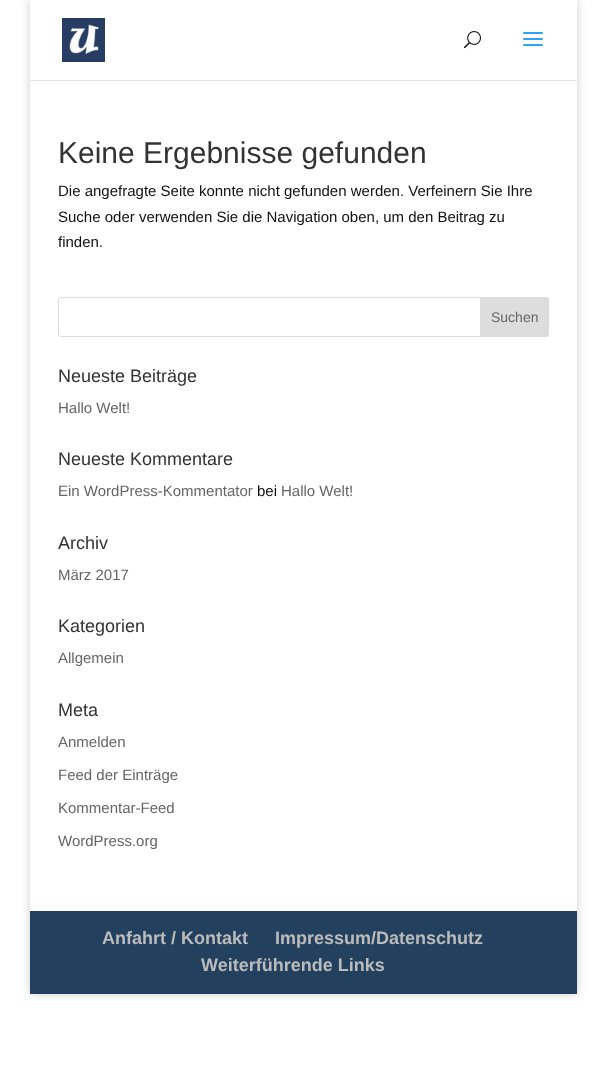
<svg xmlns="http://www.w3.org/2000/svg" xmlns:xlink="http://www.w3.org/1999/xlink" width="607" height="1077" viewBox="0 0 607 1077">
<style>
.cls-1{font:30px Liberation Sans;fill:#333333}
.cls-2{font:15px Liberation Sans;fill:#111111}
.cls-3{font:14px Liberation Sans;fill:#666666}
.cls-4{font:18px Liberation Sans;fill:#333333}
.cls-5{font:15px Liberation Sans;fill:#666666}
.cls-6{font:bold 18px Liberation Sans;fill:#bbbbbb}
</style>
<defs>
<clipPath id="clip1"><path d="M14 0H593V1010H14ZM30 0H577V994H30Z" clip-rule="evenodd"/></clipPath>
</defs>
<rect width="100%" height="100%" fill="#ffffff"/>
<g clip-path="url(#clip1)">
<rect fill="#000000" fill-opacity="0.2" filter="blur(5px)" x="30" y="0" width="547" height="994"/>
</g>
<rect fill="#e6e6e6" x="30" y="80" width="547" height="1"/>
<image xlink:href="image0.png" x="62" y="18" width="43" height="44"/>
<image xlink:href="image1.png" x="464" y="31" width="17" height="18"/>
<image xlink:href="image2.png" x="523" y="32" width="20" height="14"/>
<rect fill="none" stroke="#dddddd" x="58.5" y="297.5" width="490" height="39" rx="2.5"/>
<path fill="#dddddd" stroke="#dddddd" d="M480.5 297.5H546C547.5 297.5 548.5 298.5 548.5 300V334C548.5 335.5 547.5 336.5 546 336.5H480.5Z"/>
<rect fill="#23415e" x="30" y="911" width="547" height="83"/>
<text class="cls-1" x="58" y="163">Keine Ergebnisse gefunden</text>
<text class="cls-2"><tspan x="58" y="196">Die angefragte Seite konnte nicht gefunden werden. Verfeinern Sie Ihre</tspan><tspan x="58" y="222">Suche oder verwenden Sie die Navigation oben, um den Beitrag zu</tspan><tspan x="58" y="247">finden.</tspan></text>
<text class="cls-3" x="491" y="322">Suchen</text>
<text class="cls-4" x="58" y="382">Neueste Beiträge</text>
<text class="cls-5" x="58" y="413">Hallo Welt!</text>
<text class="cls-4" x="58" y="465">Neueste Kommentare</text>
<text class="cls-5" x="58" y="496">Ein WordPress-Kommentator</text>
<text class="cls-2" x="257" y="496">bei</text>
<text class="cls-5" x="281" y="496">Hallo Welt!</text>
<text class="cls-4" x="58" y="549">Archiv</text>
<text class="cls-5" x="58" y="580">März 2017</text>
<text class="cls-4" x="58" y="632">Kategorien</text>
<text class="cls-5" x="58" y="663">Allgemein</text>
<text class="cls-4" x="58" y="716">Meta</text>
<text class="cls-5" x="58" y="747">Anmelden</text>
<text class="cls-5" x="58" y="780">Feed der Einträge</text>
<text class="cls-5" x="58" y="813">Kommentar-Feed</text>
<text class="cls-5" x="58" y="846">WordPress.org</text>
<text class="cls-6" x="102" y="944">Anfahrt / Kontakt</text>
<text class="cls-6" x="275" y="944">Impressum/Datenschutz</text>
<text class="cls-6" x="201" y="971">Weiterführende Links</text>
</svg>
